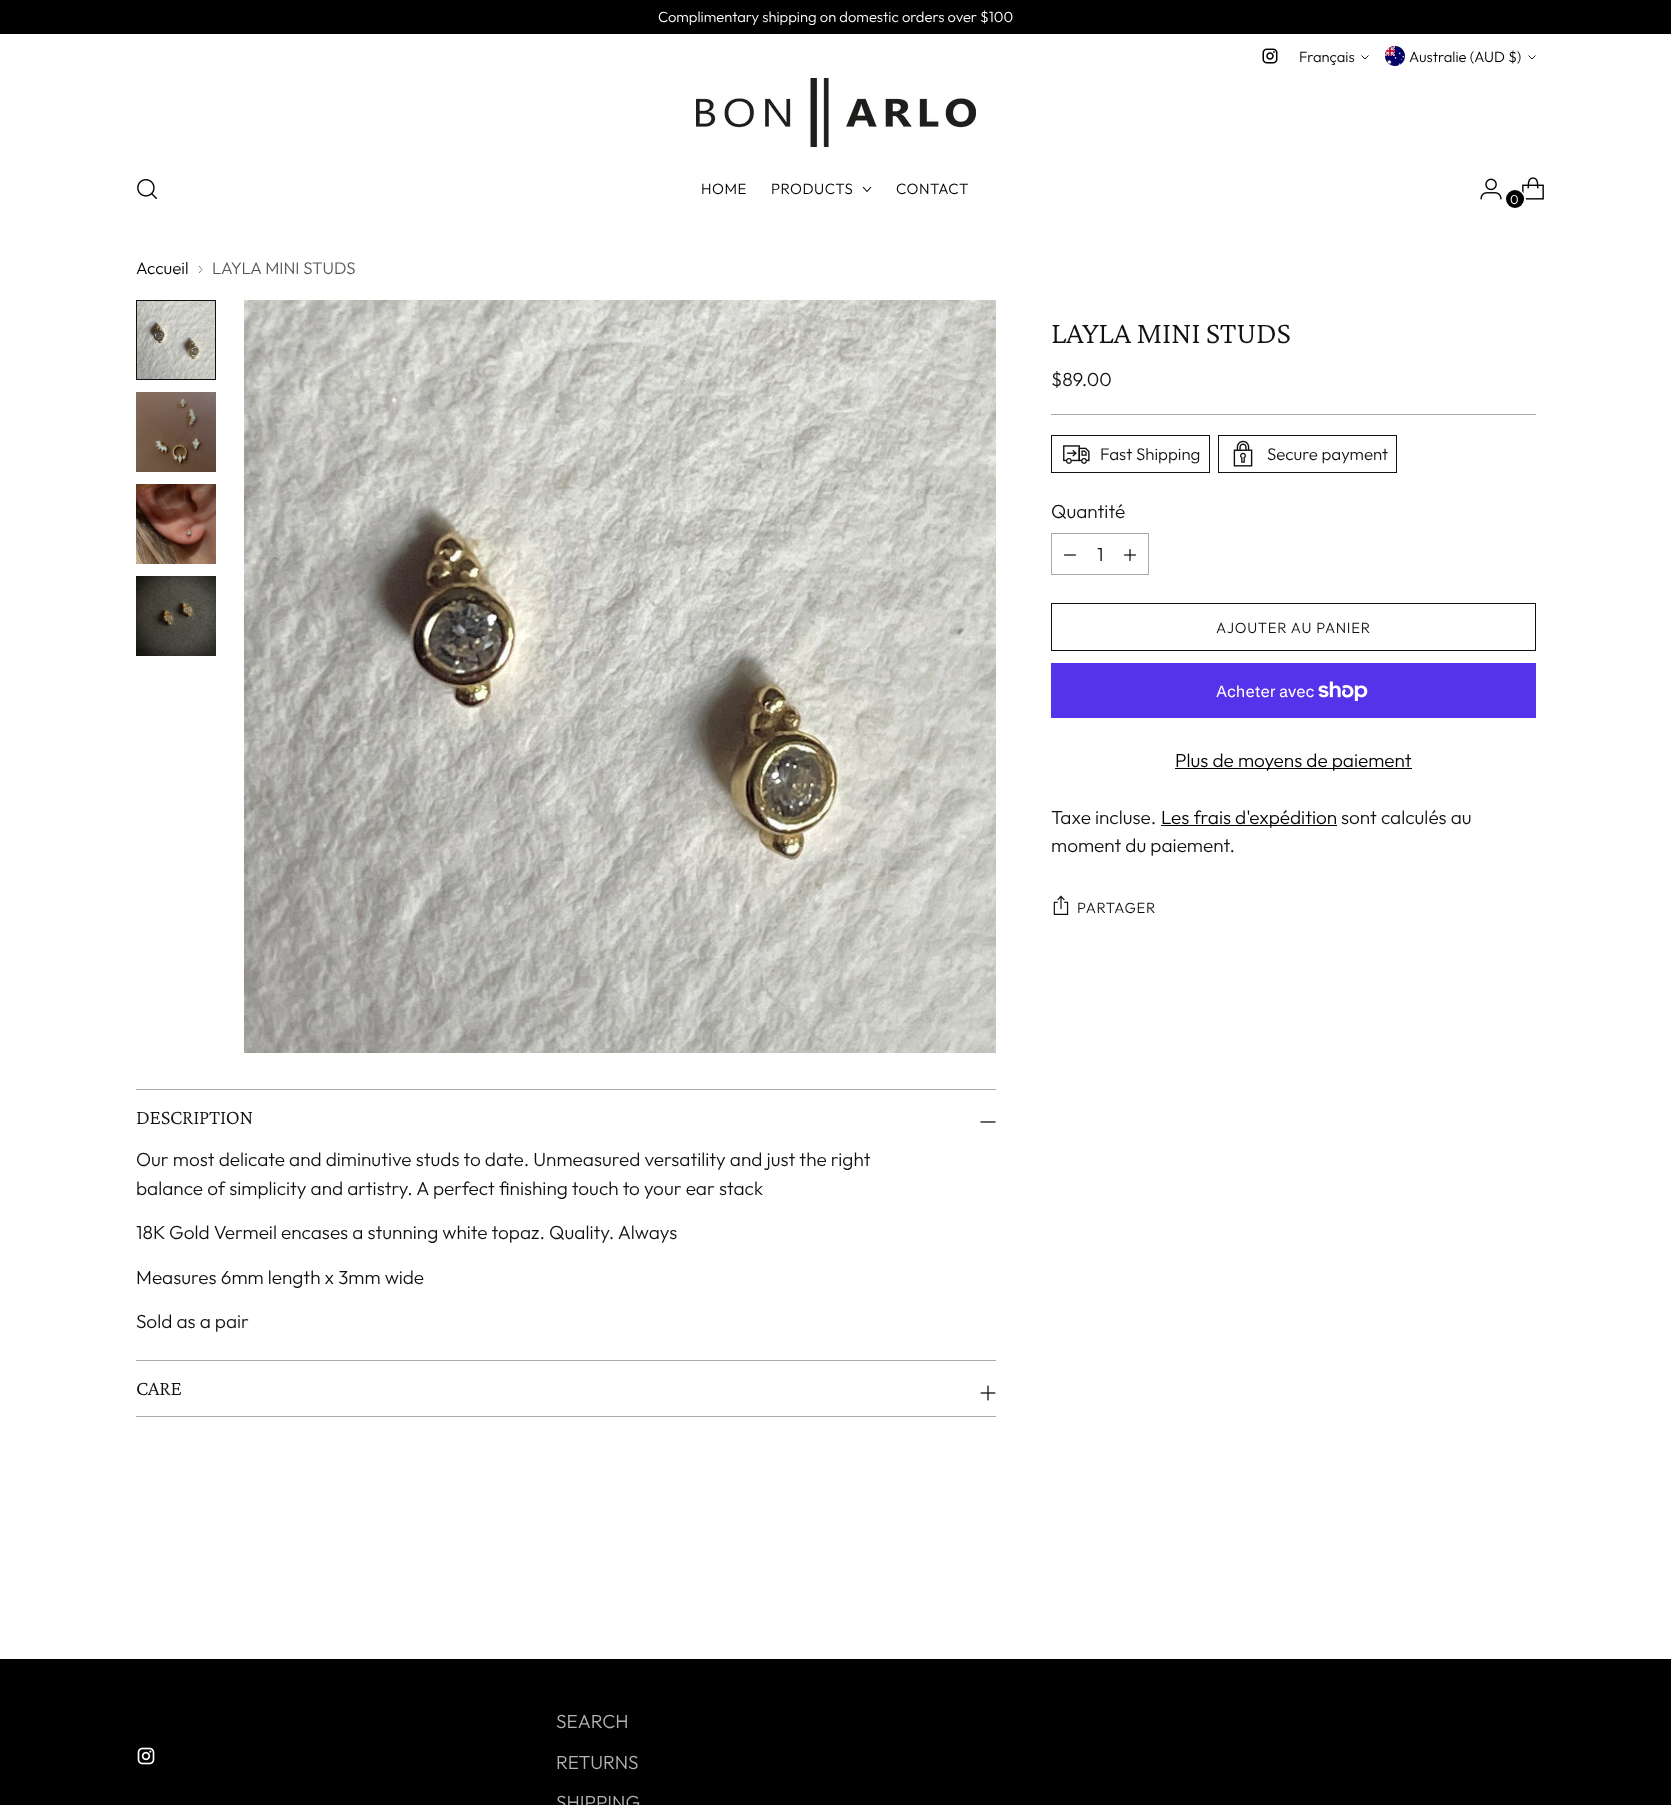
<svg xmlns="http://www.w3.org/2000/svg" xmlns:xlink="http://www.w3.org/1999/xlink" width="1671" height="1805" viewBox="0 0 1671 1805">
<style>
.cls-1{font:300 14.75px Outfit;fill:#ffffff}
.cls-2{font:300 14.75px Outfit;fill:#000000}
.cls-3{font:300 15px Outfit;letter-spacing:0.5px;fill:#000000}
.cls-4{font:300 13px Outfit;fill:#ffffff}
.cls-5{font:300 16.9px Outfit;fill:#000000}
.cls-6{font:300 16.9px Outfit;fill:#585858}
.cls-7{font:300 31.5px Crimson Pro;letter-spacing:-0.3px;fill:#111111}
.cls-8{font:300 19px Outfit;fill:#111111}
.cls-9{font:300 16.9px Outfit;fill:#111111}
.cls-10{font:300 14.75px Outfit;letter-spacing:0.75px;fill:#111111}
.cls-11{font:16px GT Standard;fill:#ffffff}
.cls-12{font:300 19px Outfit;fill:#000000}
.cls-13{font:300 21px Crimson Pro;letter-spacing:-0.25px;fill:#111111}
.cls-14{font:300 19px Outfit;fill:#b3b3b3}
</style>
<rect width="100%" height="100%" fill="#ffffff"/>
<rect fill="#000000" x="0" y="0" width="1671" height="34"/>
<image xlink:href="image0.png" x="1262" y="48" width="16" height="16"/>
<path fill="none" stroke="#000000" stroke-width="0.9" d="M1361.5 55.5L1365 59L1368.5 55.5"/>
<image xlink:href="image1.png" x="1385" y="46" width="20" height="20"/>
<path fill="none" stroke="#000000" stroke-width="0.9" d="M1528.5 55.5L1532 59L1535.5 55.5"/>
<image xlink:href="image2.png" x="696" y="78" width="280" height="69"/>
<image xlink:href="image3.png" x="137" y="179" width="21" height="21"/>
<path fill="none" stroke="#000000" stroke-width="1.1" d="M863 187L867 191.5L871 187"/>
<image xlink:href="image4.png" x="1480" y="178" width="22" height="22"/>
<image xlink:href="image5.png" x="1522" y="177" width="22" height="23"/>
<circle fill="none" stroke="#ffffff" stroke-width="2" cx="1515.5" cy="199.5" r="9.5"/>
<circle fill="#000000" cx="1515" cy="199" r="9"/>
<path fill="none" stroke="#707070" stroke-width="0.9" d="M199 273L202 269.5L199 266"/>
<rect fill="#aaaaaa" x="1051" y="414" width="485" height="1"/>
<rect fill="none" stroke="#111111" x="1051.5" y="435.5" width="158" height="37"/>
<image xlink:href="image6.png" x="1063" y="445" width="27" height="19"/>
<rect fill="none" stroke="#111111" x="1218.5" y="435.5" width="178" height="37"/>
<image xlink:href="image7.png" x="1233" y="440" width="20" height="27"/>
<rect fill="none" stroke="#aaaaaa" x="1051.5" y="533.5" width="97" height="41"/>
<image xlink:href="image8.png" x="1064" y="554" width="12" height="2"/>
<image xlink:href="image9.png" x="1124" y="549" width="12" height="12"/>
<rect fill="none" stroke="#111111" x="1051.5" y="603.5" width="484" height="47"/>
<rect fill="#5433eb" x="1051" y="663" width="485" height="55"/>
<image xlink:href="image10.png" x="1318" y="681" width="50" height="20"/>
<rect fill="#000000" x="1175" y="768" width="237" height="1"/>
<rect fill="#000000" x="1161" y="825" width="176" height="1"/>
<image xlink:href="image11.png" x="1053" y="895" width="16" height="20"/>
<image xlink:href="image12.png" x="137" y="301" width="78" height="78"/>
<rect fill="none" stroke="#111111" x="136.5" y="300.5" width="79" height="79"/>
<image xlink:href="image13.png" x="136" y="392" width="80" height="80"/>
<image xlink:href="image14.png" x="136" y="484" width="80" height="80"/>
<image xlink:href="image15.png" x="136" y="576" width="80" height="80"/>
<image xlink:href="image16.png" x="244" y="300" width="752" height="753"/>
<rect fill="#aaaaaa" x="136" y="1089" width="860" height="1"/>
<rect fill="#aaaaaa" x="136" y="1360" width="860" height="1"/>
<path fill="none" stroke="#111111" stroke-width="1.3" d="M980.5 1122H995.5"/>
<rect fill="#aaaaaa" x="136" y="1416" width="860" height="1"/>
<image xlink:href="image17.png" x="980" y="1385" width="16" height="16"/>
<rect fill="#000000" x="0" y="1659" width="1671" height="146"/>
<image xlink:href="image18.png" x="137" y="1747" width="18" height="18"/>
<text class="cls-1" x="658" y="22">Complimentary shipping on domestic orders over $100</text>
<text class="cls-2" x="1299" y="62">Français</text>
<text class="cls-2" x="1409" y="62">Australie (AUD $)</text>
<text class="cls-3" x="701" y="194">HOME</text>
<text class="cls-3" x="771" y="194">PRODUCTS</text>
<text class="cls-3" x="896" y="194">CONTACT</text>
<text class="cls-4" x="1510" y="204">0</text>
<text class="cls-5" x="136" y="274">Accueil</text>
<text class="cls-6" x="212" y="274">LAYLA MINI STUDS</text>
<text class="cls-7" x="1051" y="343">LAYLA MINI STUDS</text>
<text class="cls-8" x="1051" y="386">$89.00</text>
<text class="cls-9" x="1100" y="460">Fast Shipping</text>
<text class="cls-9" x="1267" y="460">Secure payment</text>
<text class="cls-8" x="1051" y="518">Quantité</text>
<text class="cls-8" x="1097" y="561">1</text>
<text class="cls-10" x="1216" y="633">AJOUTER AU PANIER</text>
<text class="cls-11" x="1216" y="697">Acheter avec</text>
<text class="cls-12" x="1175" y="767">Plus de moyens de paiement</text>
<text class="cls-8" x="1051" y="824">Taxe incluse.</text>
<text class="cls-12" x="1161" y="824">Les frais d'expédition</text>
<text class="cls-8" x="1341" y="824">sont calculés au</text>
<text class="cls-8" x="1051" y="852">moment du paiement.</text>
<text class="cls-10" x="1077" y="913">PARTAGER</text>
<text class="cls-13" x="136" y="1124">DESCRIPTION</text>
<text class="cls-8"><tspan x="136" y="1166">Our most delicate and diminutive studs to date. Unmeasured versatility and just the right</tspan><tspan x="136" y="1195">balance of simplicity and artistry. A perfect finishing touch to your ear stack</tspan></text>
<text class="cls-8" x="136" y="1239">18K Gold Vermeil encases a stunning white topaz. Quality. Always</text>
<text class="cls-8" x="136" y="1284">Measures 6mm length x 3mm wide</text>
<text class="cls-8" x="136" y="1328">Sold as a pair</text>
<text class="cls-13" x="136" y="1395">CARE</text>
<text class="cls-14" x="556" y="1728">SEARCH</text>
<text class="cls-14" x="556" y="1769">RETURNS</text>
<text class="cls-14" x="556" y="1809">SHIPPING</text>
</svg>
